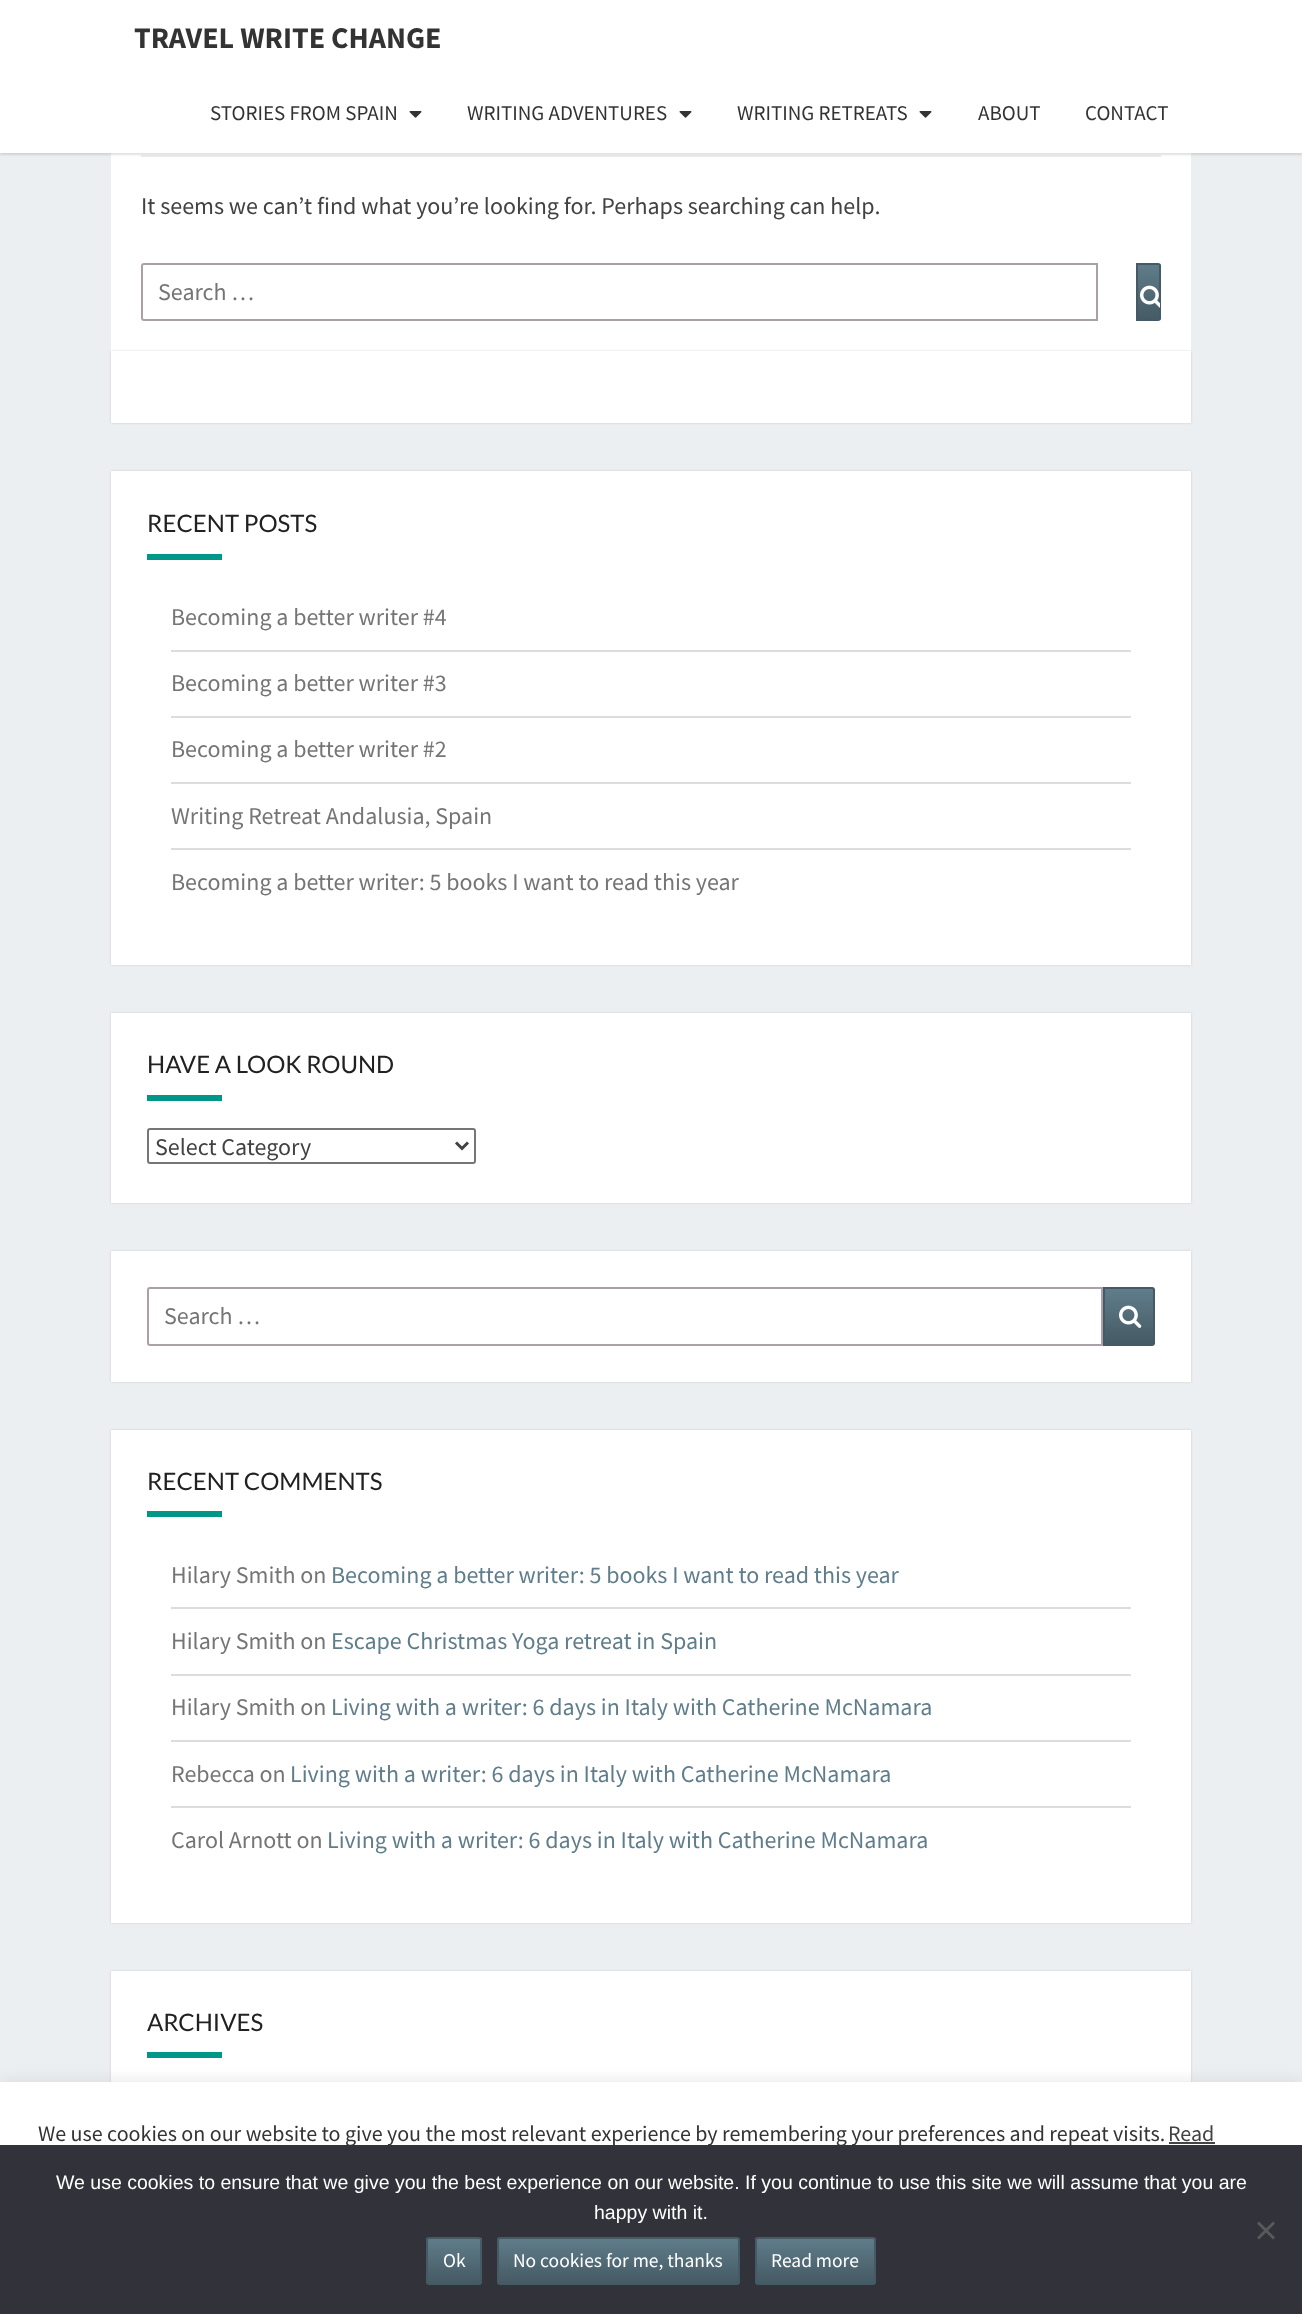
<svg xmlns="http://www.w3.org/2000/svg" xmlns:xlink="http://www.w3.org/1999/xlink" width="1302" height="2314" viewBox="0 0 1302 2314">
<style>
.cls-1{font:bold 30px Source Sans Pro;fill:#333333}
.cls-2{font:21px Source Sans Pro;fill:#333333}
.cls-3{font:24px Source Sans Pro;fill:#424242}
.cls-4{font:24px Source Sans Pro;fill:#757575}
.cls-5{font:24px Lato;fill:#212121}
.cls-6{font:24px Source Sans Pro;fill:#607d8b}
.cls-7{font:22px Source Sans Pro;fill:#333333}
.cls-8{font:22px Source Sans Pro;fill:#424242}
.cls-9{font:19.5px Liberation Sans;fill:#ffffff}
.cls-10{font:19.5px Source Sans Pro;fill:#ffffff}
</style>
<defs>
<clipPath id="clip1"><path d="M1136 263H1158C1159.5 263 1161 264.5 1161 266V318C1161 319.5 1159.5 321 1158 321H1136Z"/></clipPath>
<linearGradient id="g1" gradientUnits="userSpaceOnUse" x1="1148" y1="264" x2="1148" y2="320"><stop offset="0" stop-color="#607d8b"/><stop offset="1" stop-color="#455a64"/></linearGradient>
<linearGradient id="g2" gradientUnits="userSpaceOnUse" x1="1129" y1="1289" x2="1129" y2="1344"><stop offset="0" stop-color="#607d8b"/><stop offset="1" stop-color="#455a64"/></linearGradient>
<clipPath id="clip2"><rect x="426" y="2237" width="56" height="48" rx="3"/></clipPath>
<linearGradient id="g3" gradientUnits="userSpaceOnUse" x1="454" y1="2238" x2="454" y2="2283"><stop offset="0" stop-color="#607d8b"/><stop offset="1" stop-color="#455a64"/></linearGradient>
<clipPath id="clip3"><rect x="497" y="2237" width="243" height="48" rx="3"/></clipPath>
<linearGradient id="g4" gradientUnits="userSpaceOnUse" x1="618" y1="2238" x2="618" y2="2283"><stop offset="0" stop-color="#607d8b"/><stop offset="1" stop-color="#455a64"/></linearGradient>
<clipPath id="clip4"><rect x="755" y="2237" width="121" height="48" rx="3"/></clipPath>
<linearGradient id="g5" gradientUnits="userSpaceOnUse" x1="815" y1="2238" x2="815" y2="2283"><stop offset="0" stop-color="#607d8b"/><stop offset="1" stop-color="#455a64"/></linearGradient>
</defs>
<rect width="100%" height="100%" fill="#eceff1"/>
<rect fill="#ffffff" x="111" y="153" width="1080" height="198"/>
<rect fill="#eeeeee" x="141" y="155" width="1020" height="2"/>
<rect fill="#646464" fill-opacity="0.2" filter="blur(1px)" x="0" y="2" width="1302" height="153"/>
<rect fill="#ffffff" x="0" y="0" width="1302" height="153"/>
<image xlink:href="image0.png" x="409" y="111" width="13" height="7"/>
<image xlink:href="image0.png" x="679" y="111" width="13" height="7"/>
<image xlink:href="image0.png" x="919" y="111" width="13" height="7"/>
<path fill="none" stroke="#aaa1a8" stroke-width="2" d="M144 264H1097V320H144C143 320 142 319 142 318V266C142 265 143 264 144 264Z"/>
<g clip-path="url(#clip1)">
<rect fill="url(#g1)" x="1138" y="264" width="23" height="56"/>
</g>
<path fill="none" stroke="#455a64" stroke-width="2" d="M1137 264H1158C1159 264 1160 265 1160 266V318C1160 319 1159 320 1158 320H1137Z"/>
<image xlink:href="image1.png" x="1140" y="285" width="20" height="23"/>
<rect fill="#000000" fill-opacity="0.15" filter="blur(1px)" x="111" y="351" width="1080" height="72"/>
<rect fill="#ffffff" x="111" y="351" width="1080" height="72"/>
<rect fill="#000000" fill-opacity="0.15" filter="blur(1px)" x="111" y="471" width="1080" height="494"/>
<rect fill="#ffffff" x="111" y="471" width="1080" height="494"/>
<rect fill="#009688" x="147" y="554" width="75" height="6"/>
<rect fill="#dddddd" x="171" y="650" width="960" height="2"/>
<rect fill="#dddddd" x="171" y="716" width="960" height="2"/>
<rect fill="#dddddd" x="171" y="782" width="960" height="2"/>
<rect fill="#dddddd" x="171" y="848" width="960" height="2"/>
<rect fill="#000000" fill-opacity="0.15" filter="blur(1px)" x="111" y="1013" width="1080" height="190"/>
<rect fill="#ffffff" x="111" y="1013" width="1080" height="190"/>
<rect fill="#009688" x="147" y="1095" width="75" height="6"/>
<rect fill="none" stroke="#767676" stroke-width="2" x="148" y="1129" width="327" height="34" rx="2"/>
<path fill="none" stroke="#424242" stroke-width="3" d="M456 1142.5L462 1148.5L468 1142.5"/>
<rect fill="#000000" fill-opacity="0.15" filter="blur(1px)" x="111" y="1251" width="1080" height="131"/>
<rect fill="#ffffff" x="111" y="1251" width="1080" height="131"/>
<path fill="none" stroke="#aaa1a8" stroke-width="2" d="M150 1288H1102V1345H150C149 1345 148 1344 148 1343V1290C148 1289 149 1288 150 1288Z"/>
<rect fill="url(#g2)" x="1105" y="1289" width="50" height="55"/>
<path fill="none" stroke="#455a64" stroke-width="2" d="M1104 1288H1152C1153 1288 1154 1289 1154 1290V1343C1154 1344 1153 1345 1152 1345H1104Z"/>
<image xlink:href="image2.png" x="1119" y="1305" width="23" height="23"/>
<rect fill="#000000" fill-opacity="0.15" filter="blur(1px)" x="111" y="1430" width="1080" height="493"/>
<rect fill="#ffffff" x="111" y="1430" width="1080" height="493"/>
<rect fill="#009688" x="147" y="1511" width="75" height="6"/>
<rect fill="#dddddd" x="171" y="1607" width="960" height="2"/>
<rect fill="#dddddd" x="171" y="1674" width="960" height="2"/>
<rect fill="#dddddd" x="171" y="1740" width="960" height="2"/>
<rect fill="#dddddd" x="171" y="1806" width="960" height="2"/>
<rect fill="#000000" fill-opacity="0.15" filter="blur(1px)" x="111" y="1971" width="1080" height="191"/>
<rect fill="#ffffff" x="111" y="1971" width="1080" height="111"/>
<rect fill="#009688" x="147" y="2052" width="75" height="6"/>
<rect fill="#acabab" fill-opacity="0.3" filter="blur(7.5px)" x="0" y="2081" width="1302" height="232"/>
<rect fill="#ffffff" x="0" y="2082" width="1302" height="63"/>
<rect fill="#444444" x="1169" y="2142" width="46" height="2"/>
<text class="cls-1" x="134" y="48">TRAVEL WRITE CHANGE</text>
<text class="cls-2" x="210" y="120">STORIES FROM SPAIN</text>
<text class="cls-2" x="467" y="120">WRITING ADVENTURES</text>
<text class="cls-2" x="737" y="120">WRITING RETREATS</text>
<text class="cls-2" x="978" y="120">ABOUT</text>
<text class="cls-2" x="1085" y="120">CONTACT</text>
<text class="cls-3" x="141" y="214">It seems we can’t find what you’re looking for. Perhaps searching can help.</text>
<text class="cls-4" x="158" y="300">Search …</text>
<text class="cls-5" x="147" y="532">RECENT POSTS</text>
<text class="cls-4" x="171" y="625">Becoming a better writer #4</text>
<text class="cls-4" x="171" y="691">Becoming a better writer #3</text>
<text class="cls-4" x="171" y="757">Becoming a better writer #2</text>
<text class="cls-4" x="171" y="824">Writing Retreat Andalusia, Spain</text>
<text class="cls-4" x="171" y="890">Becoming a better writer: 5 books I want to read this year</text>
<text class="cls-5" x="147" y="1073">HAVE A LOOK ROUND</text>
<text class="cls-3" x="155" y="1155">Select Category</text>
<text class="cls-4" x="164" y="1324">Search …</text>
<text class="cls-5" x="147" y="1490">RECENT COMMENTS</text>
<text class="cls-4" x="171" y="1583">Hilary Smith on</text>
<text class="cls-6" x="331" y="1583">Becoming a better writer: 5 books I want to read this year</text>
<text class="cls-4" x="171" y="1649">Hilary Smith on</text>
<text class="cls-6" x="331" y="1649">Escape Christmas Yoga retreat in Spain</text>
<text class="cls-4" x="171" y="1715">Hilary Smith on</text>
<text class="cls-6" x="331" y="1715">Living with a writer: 6 days in Italy with Catherine McNamara</text>
<text class="cls-4" x="171" y="1782">Rebecca on</text>
<text class="cls-6" x="290" y="1782">Living with a writer: 6 days in Italy with Catherine McNamara</text>
<text class="cls-4" x="171" y="1848">Carol Arnott on</text>
<text class="cls-6" x="327" y="1848">Living with a writer: 6 days in Italy with Catherine McNamara</text>
<text class="cls-5" x="147" y="2031">ARCHIVES</text>
<text class="cls-7" x="38" y="2141">We use cookies on our website to give you the most relevant experience by remembering your preferences and repeat visits.</text>
<text class="cls-8" x="1168" y="2141">Read</text>
<rect fill="#32323a" x="0" y="2145" width="1302" height="169"/>
<text class="cls-9" x="56" y="2189">We use cookies to ensure that we give you the best experience on our website. If you continue to use this site we will assume that you are</text>
<text class="cls-9" x="594" y="2219">happy with it.</text>
<path fill="#59595d" d="M1273 2221.5L1275 2223.5L1259 2239.5L1257 2237.5Z"/>
<path fill="#59595d" d="M1257 2223.5L1259 2221.5L1275 2237.5L1273 2239.5Z"/>
<g clip-path="url(#clip2)">
<rect fill="url(#g3)" x="426" y="2238" width="56" height="45"/>
</g>
<rect fill="none" stroke="#455a64" stroke-width="2" x="427" y="2238" width="54" height="46" rx="2"/>
<text class="cls-10" x="443" y="2267">Ok</text>
<g clip-path="url(#clip3)">
<rect fill="url(#g4)" x="497" y="2238" width="243" height="45"/>
</g>
<rect fill="none" stroke="#455a64" stroke-width="2" x="498" y="2238" width="241" height="46" rx="2"/>
<text class="cls-10" x="513" y="2267">No cookies for me, thanks</text>
<g clip-path="url(#clip4)">
<rect fill="url(#g5)" x="755" y="2238" width="121" height="45"/>
</g>
<rect fill="none" stroke="#455a64" stroke-width="2" x="756" y="2238" width="119" height="46" rx="2"/>
<text class="cls-10" x="771" y="2267">Read more</text>
</svg>
